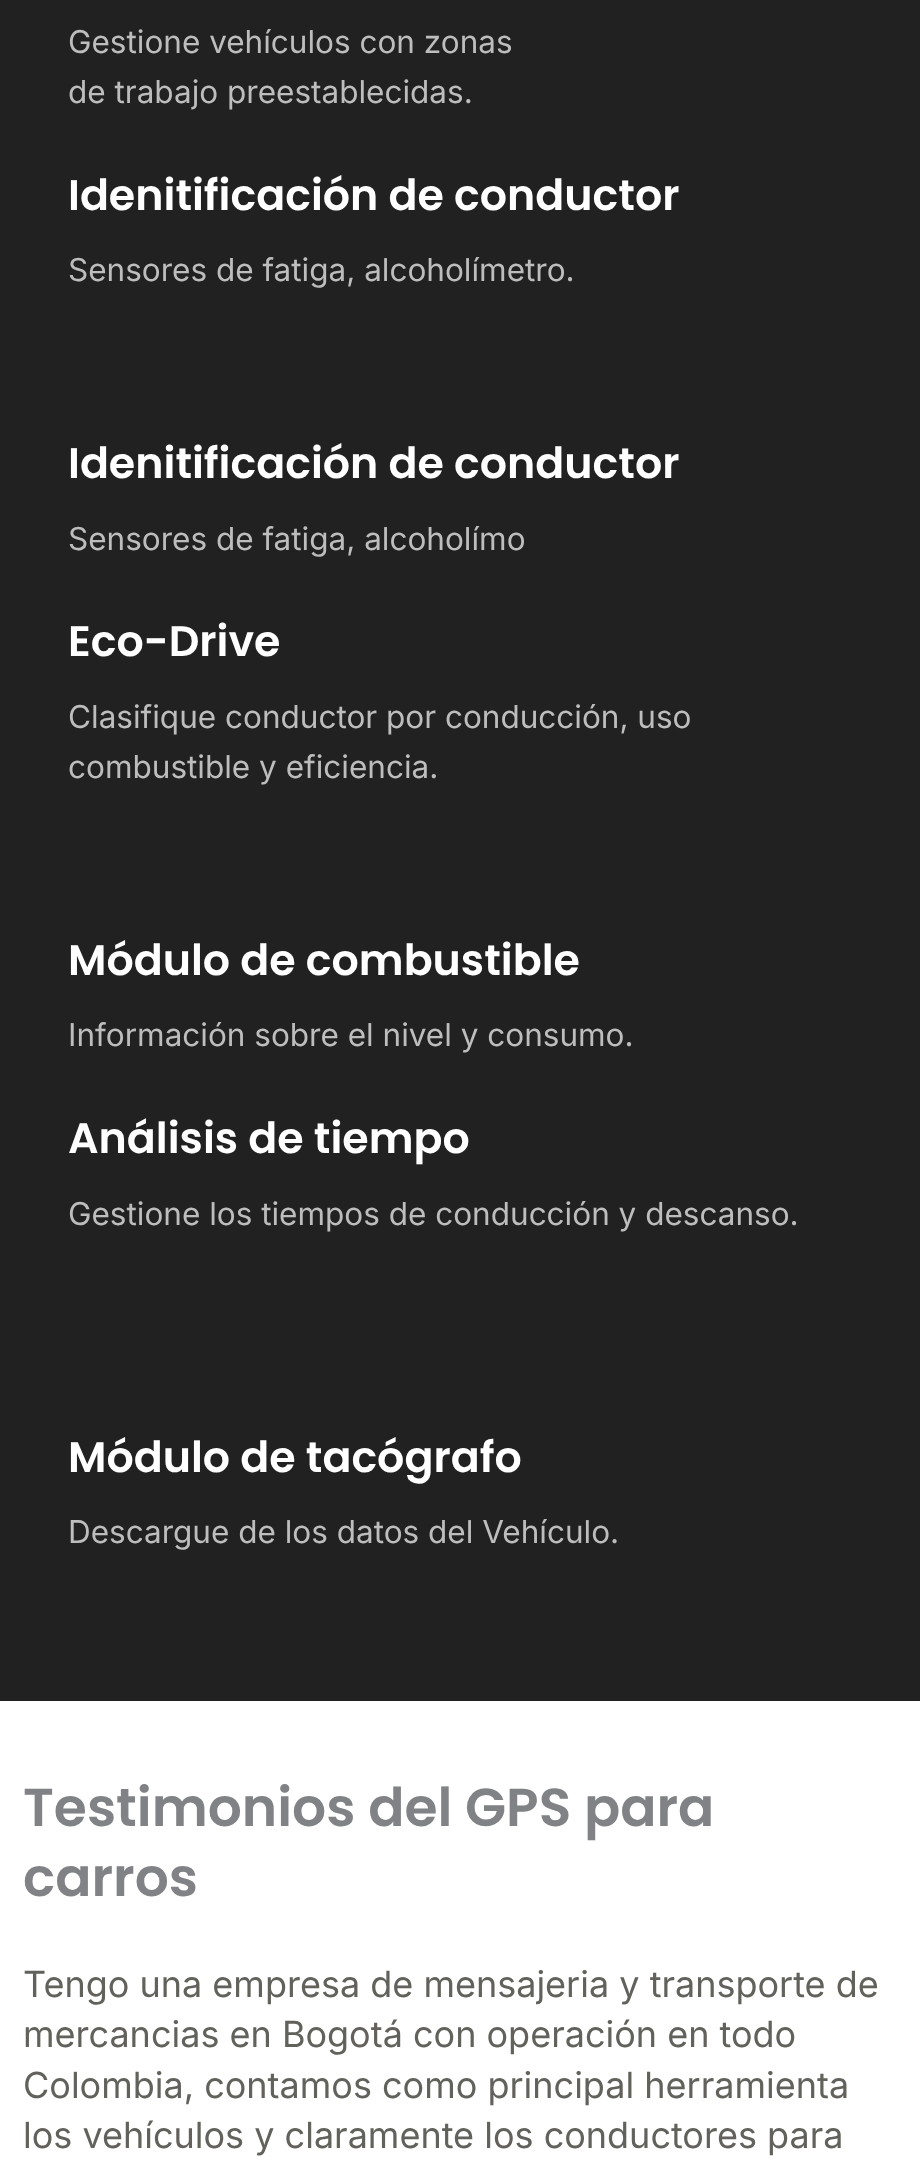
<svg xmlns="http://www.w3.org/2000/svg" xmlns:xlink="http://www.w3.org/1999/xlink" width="920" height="2171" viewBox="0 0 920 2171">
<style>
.cls-1{font:31.5px Inter;fill:#bdbdbd}
.cls-2{font:600 42.75px Poppins;fill:#ffffff}
.cls-3{font:600 53.5px Poppins;fill:#808285}
.cls-4{font:36px Inter;fill:#62615c}
</style>
<rect width="100%" height="100%" fill="#ffffff"/>
<rect fill="#212121" x="0" y="0" width="920" height="1701"/>
<text class="cls-1"><tspan x="68" y="53">Gestione vehículos con zonas</tspan><tspan x="68" y="103">de trabajo preestablecidas.</tspan></text>
<text class="cls-2" x="68" y="210">Idenitificación de conductor</text>
<text class="cls-1" x="68" y="281">Sensores de fatiga, alcoholímetro.</text>
<text class="cls-2" x="68" y="478">Idenitificación de conductor</text>
<text class="cls-1" x="68" y="550">Sensores de fatiga, alcoholímo</text>
<text class="cls-2" x="68" y="656">Eco-Drive</text>
<text class="cls-1"><tspan x="68" y="728">Clasifique conductor por conducción, uso</tspan><tspan x="68" y="778">combustible y eficiencia.</tspan></text>
<text class="cls-2" x="68" y="975">Módulo de combustible</text>
<text class="cls-1" x="68" y="1046">Información sobre el nivel y consumo.</text>
<text class="cls-2" x="68" y="1153">Análisis de tiempo</text>
<text class="cls-1" x="68" y="1225">Gestione los tiempos de conducción y descanso.</text>
<text class="cls-2" x="68" y="1472">Módulo de tacógrafo</text>
<text class="cls-1" x="68" y="1543">Descargue de los datos del Vehículo.</text>
<text class="cls-3"><tspan x="23" y="1826">Testimonios del GPS para</tspan><tspan x="23" y="1896">carros</tspan></text>
<text class="cls-4"><tspan x="23" y="1997">Tengo una empresa de mensajeria y transporte de</tspan><tspan x="23" y="2047">mercancias en Bogotá con operación en todo</tspan><tspan x="23" y="2098">Colombia, contamos como principal herramienta</tspan><tspan x="23" y="2148">los vehículos y claramente los conductores para</tspan></text>
</svg>
